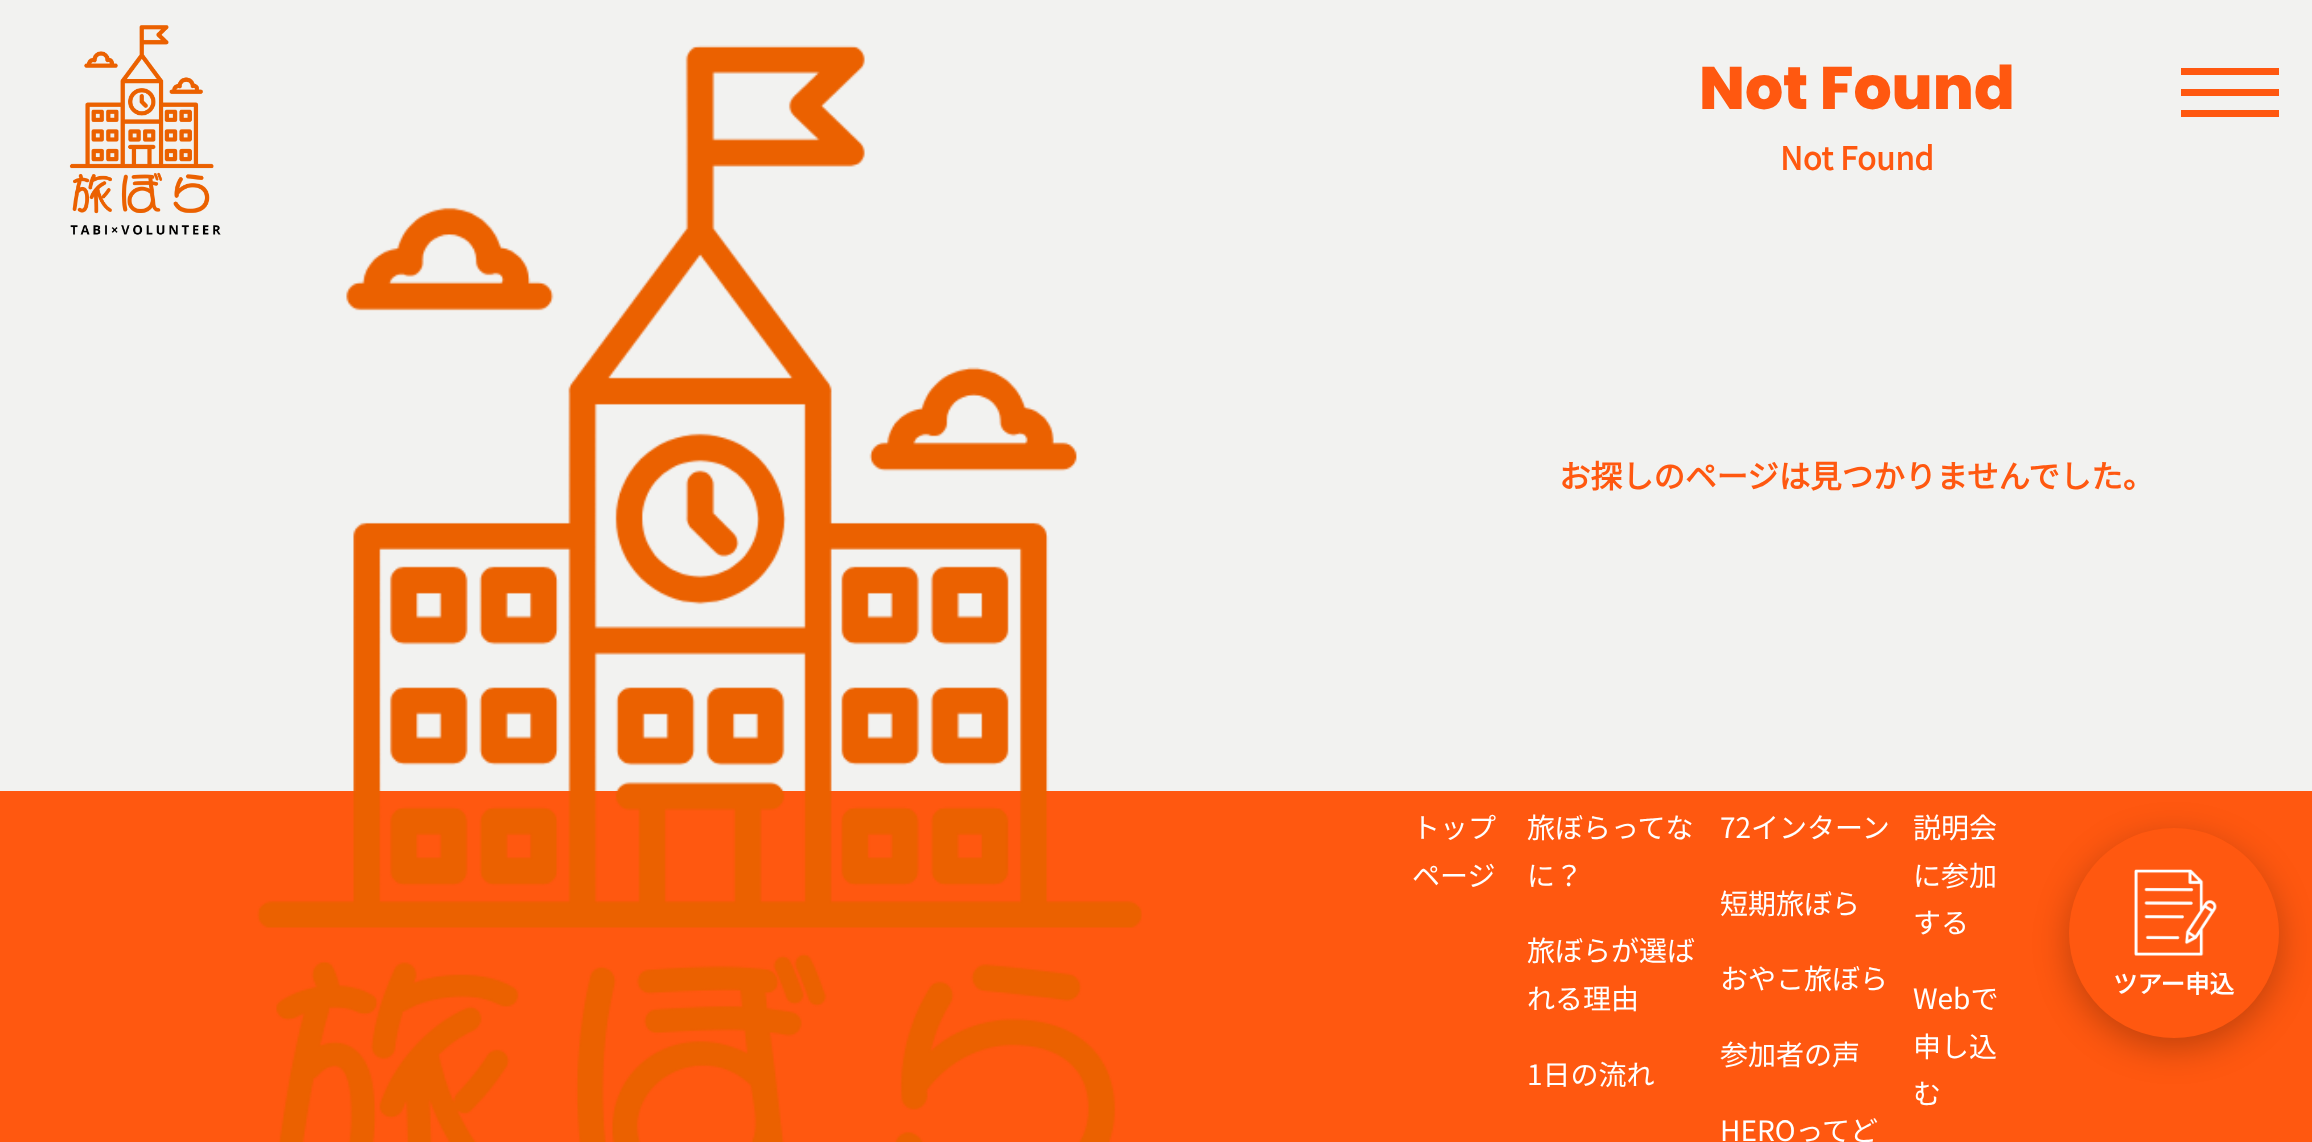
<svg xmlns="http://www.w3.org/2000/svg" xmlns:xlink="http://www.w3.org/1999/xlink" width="2312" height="1142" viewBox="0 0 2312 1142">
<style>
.cls-1{font:800 60px Poppins;fill:#ff5810}
.cls-2{font:bold 31.5px Noto Sans JP;fill:#ff5810}
.cls-3{font:100 28px Noto Sans JP;fill:#ffffff}
.cls-4{font:bold 24.5px Noto Sans JP;fill:#ffffff}
</style>
<rect width="100%" height="100%" fill="#f2f2f0"/>
<image xlink:href="image0.png" x="69" y="25" width="152" height="210"/>
<rect fill="#ff5810" x="0" y="791" width="2312" height="351"/>
<image xlink:href="image1.png" x="257" y="45" width="885" height="1097"/>
<rect fill="#ff5810" x="2181" y="89" width="98" height="7"/>
<rect fill="#ff5810" x="2181" y="68" width="98" height="7"/>
<rect fill="#ff5810" x="2181" y="110" width="98" height="7"/>
<rect fill="#000000" fill-opacity="0.25" filter="blur(17.5px)" x="2069" y="838" width="210" height="210" rx="105"/>
<circle fill="#ff5810" cx="2174" cy="933" r="105"/>
<image xlink:href="image2.png" x="2134" y="869" width="83" height="87"/>
<text class="cls-1" x="1699" y="109">Not Found</text>
<text class="cls-2" x="1780" y="170">Not Found</text>
<text class="cls-2" x="1559" y="488">お探しのページは見つかりませんでした。</text>
<text class="cls-3"><tspan x="1412" y="838">トップ</tspan><tspan x="1412" y="886">ページ</tspan></text>
<text class="cls-3"><tspan x="1527" y="838">旅ぼらってな</tspan><tspan x="1527" y="886">に？</tspan></text>
<text class="cls-3"><tspan x="1527" y="961">旅ぼらが選ば</tspan><tspan x="1527" y="1009">れる理由</tspan></text>
<text class="cls-3" x="1527" y="1085">1日の流れ</text>
<text class="cls-3" x="1720" y="838">72インターン</text>
<text class="cls-3" x="1720" y="914">短期旅ぼら</text>
<text class="cls-3" x="1720" y="989">おやこ旅ぼら</text>
<text class="cls-3" x="1720" y="1065">参加者の声</text>
<text class="cls-3" x="1720" y="1141">HEROってど</text>
<text class="cls-3"><tspan x="1913" y="838">説明会</tspan><tspan x="1913" y="886">に参加</tspan><tspan x="1913" y="933">する</tspan></text>
<text class="cls-3"><tspan x="1913" y="1009">Webで</tspan><tspan x="1913" y="1057">申し込</tspan><tspan x="1913" y="1104">む</tspan></text>
<text class="cls-4" x="2113" y="993">ツアー申込</text>
</svg>
